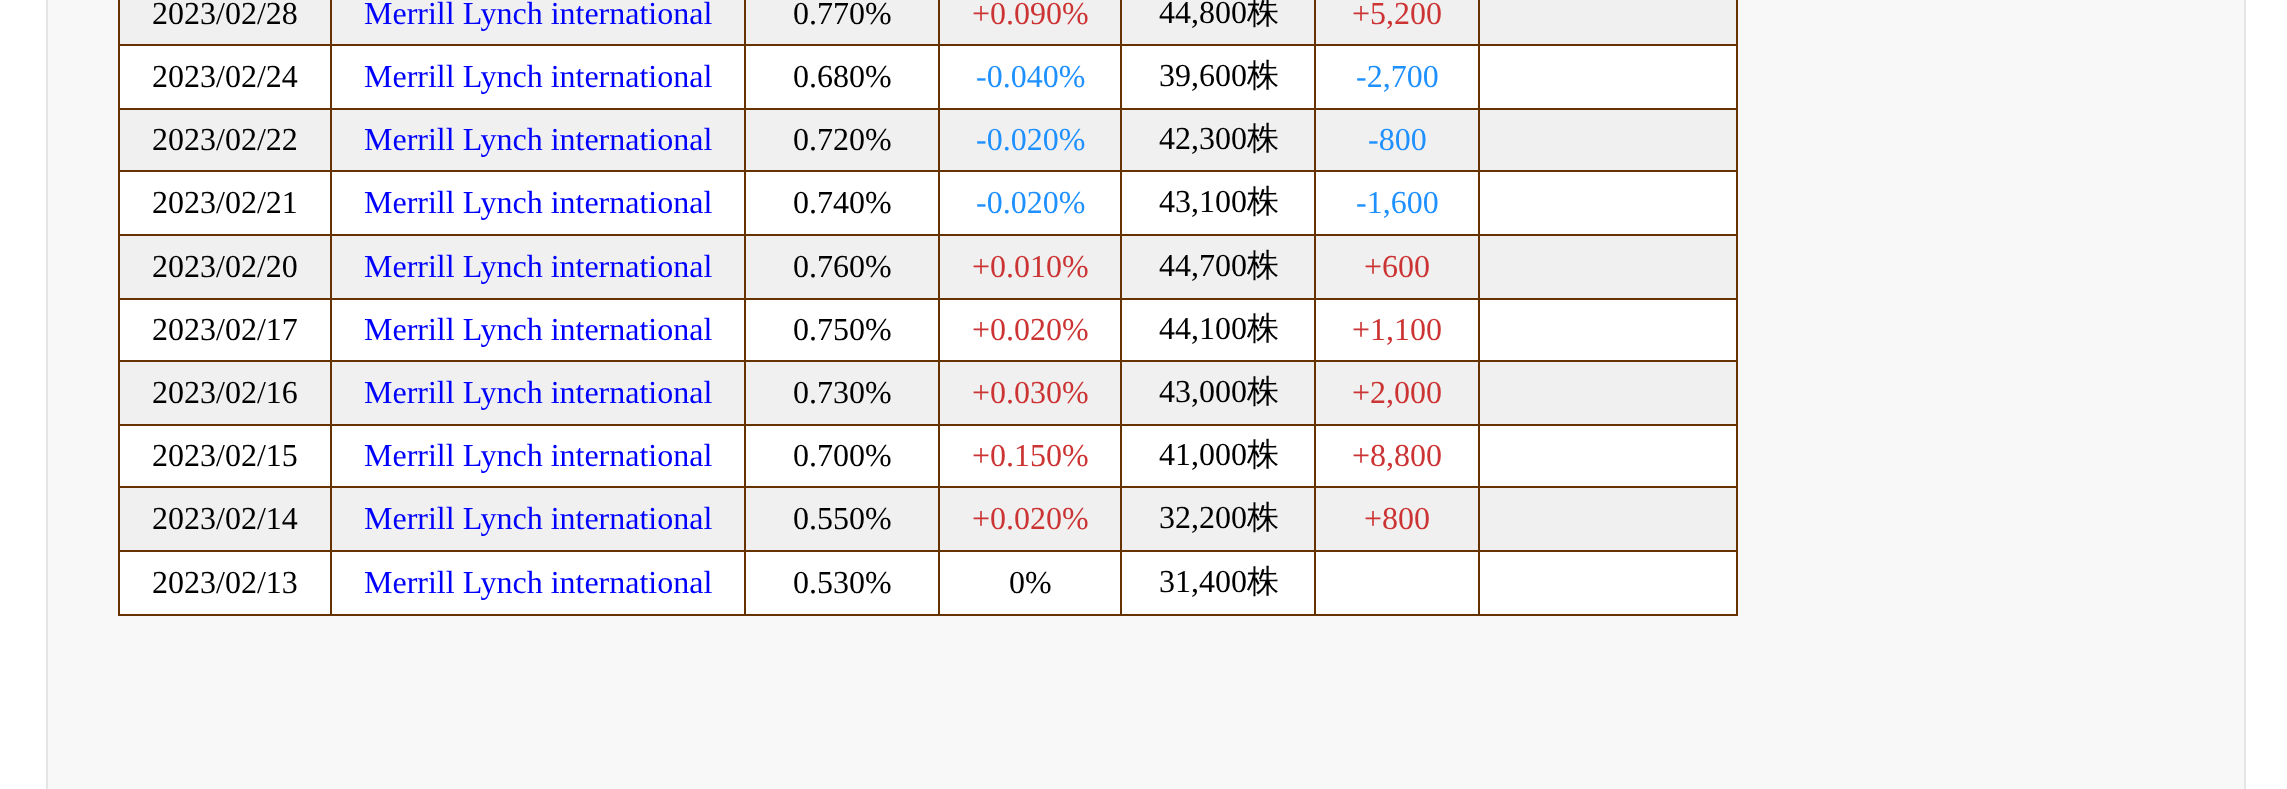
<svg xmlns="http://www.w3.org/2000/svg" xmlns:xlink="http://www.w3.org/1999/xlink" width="2287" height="789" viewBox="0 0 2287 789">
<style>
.cls-1{font:32px Liberation Serif;fill:#000000}
.cls-2{font:32px Liberation Serif;fill:#0000ff}
.cls-3{font:32px Liberation Serif;fill:#cc3333}
.cls-4{font:500 32px WenQuanYi Zen Hei;fill:#000000}
.cls-5{font:32px Liberation Serif;fill:#1e90ff}
</style>
<rect width="100%" height="100%" fill="#ffffff"/>
<rect fill="#f8f8f8" stroke="#e5e5e5" stroke-width="2" x="47" y="-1" width="2198" height="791"/>
<rect fill="#ffffff" x="120" y="46" width="1616" height="568"/>
<rect fill="#663300" x="118" y="0" width="2" height="616"/>
<rect fill="#f0f0f0" x="120" y="0" width="1616" height="44"/>
<rect fill="#f0f0f0" x="120" y="110" width="1616" height="60"/>
<rect fill="#f0f0f0" x="120" y="236" width="1616" height="62"/>
<rect fill="#f0f0f0" x="120" y="362" width="1616" height="62"/>
<rect fill="#f0f0f0" x="120" y="488" width="1616" height="62"/>
<rect fill="#663300" x="1736" y="0" width="2" height="616"/>
<rect fill="#663300" x="1478" y="614" width="260" height="2"/>
<rect fill="#663300" x="1478" y="550" width="2" height="66"/>
<rect fill="#663300" x="1478" y="550" width="260" height="2"/>
<rect fill="#663300" x="1478" y="486" width="2" height="66"/>
<rect fill="#663300" x="1478" y="486" width="260" height="2"/>
<rect fill="#663300" x="1478" y="424" width="2" height="64"/>
<rect fill="#663300" x="1478" y="424" width="260" height="2"/>
<rect fill="#663300" x="1478" y="360" width="2" height="66"/>
<rect fill="#663300" x="1478" y="360" width="260" height="2"/>
<rect fill="#663300" x="1478" y="298" width="2" height="64"/>
<rect fill="#663300" x="1478" y="298" width="260" height="2"/>
<rect fill="#663300" x="1478" y="234" width="2" height="66"/>
<rect fill="#663300" x="1478" y="234" width="260" height="2"/>
<rect fill="#663300" x="1478" y="170" width="2" height="66"/>
<rect fill="#663300" x="1478" y="170" width="260" height="2"/>
<rect fill="#663300" x="1478" y="108" width="2" height="64"/>
<rect fill="#663300" x="1478" y="108" width="260" height="2"/>
<rect fill="#663300" x="1478" y="44" width="2" height="66"/>
<rect fill="#663300" x="1478" y="44" width="260" height="2"/>
<rect fill="#663300" x="1478" y="0" width="2" height="46"/>
<rect fill="#663300" x="1314" y="614" width="166" height="2"/>
<rect fill="#663300" x="1314" y="550" width="2" height="66"/>
<rect fill="#663300" x="1314" y="550" width="166" height="2"/>
<rect fill="#663300" x="1314" y="486" width="2" height="66"/>
<rect fill="#663300" x="1314" y="486" width="166" height="2"/>
<rect fill="#663300" x="1314" y="424" width="2" height="64"/>
<rect fill="#663300" x="1314" y="424" width="166" height="2"/>
<rect fill="#663300" x="1314" y="360" width="2" height="66"/>
<rect fill="#663300" x="1314" y="360" width="166" height="2"/>
<rect fill="#663300" x="1314" y="298" width="2" height="64"/>
<rect fill="#663300" x="1314" y="298" width="166" height="2"/>
<rect fill="#663300" x="1314" y="234" width="2" height="66"/>
<rect fill="#663300" x="1314" y="234" width="166" height="2"/>
<rect fill="#663300" x="1314" y="170" width="2" height="66"/>
<rect fill="#663300" x="1314" y="170" width="166" height="2"/>
<rect fill="#663300" x="1314" y="108" width="2" height="64"/>
<rect fill="#663300" x="1314" y="108" width="166" height="2"/>
<rect fill="#663300" x="1314" y="44" width="2" height="66"/>
<rect fill="#663300" x="1314" y="44" width="166" height="2"/>
<rect fill="#663300" x="1314" y="0" width="2" height="46"/>
<rect fill="#663300" x="1120" y="614" width="196" height="2"/>
<rect fill="#663300" x="1120" y="550" width="2" height="66"/>
<rect fill="#663300" x="1120" y="550" width="196" height="2"/>
<rect fill="#663300" x="1120" y="486" width="2" height="66"/>
<rect fill="#663300" x="1120" y="486" width="196" height="2"/>
<rect fill="#663300" x="1120" y="424" width="2" height="64"/>
<rect fill="#663300" x="1120" y="424" width="196" height="2"/>
<rect fill="#663300" x="1120" y="360" width="2" height="66"/>
<rect fill="#663300" x="1120" y="360" width="196" height="2"/>
<rect fill="#663300" x="1120" y="298" width="2" height="64"/>
<rect fill="#663300" x="1120" y="298" width="196" height="2"/>
<rect fill="#663300" x="1120" y="234" width="2" height="66"/>
<rect fill="#663300" x="1120" y="234" width="196" height="2"/>
<rect fill="#663300" x="1120" y="170" width="2" height="66"/>
<rect fill="#663300" x="1120" y="170" width="196" height="2"/>
<rect fill="#663300" x="1120" y="108" width="2" height="64"/>
<rect fill="#663300" x="1120" y="108" width="196" height="2"/>
<rect fill="#663300" x="1120" y="44" width="2" height="66"/>
<rect fill="#663300" x="1120" y="44" width="196" height="2"/>
<rect fill="#663300" x="1120" y="0" width="2" height="46"/>
<rect fill="#663300" x="938" y="614" width="184" height="2"/>
<rect fill="#663300" x="938" y="550" width="2" height="66"/>
<rect fill="#663300" x="938" y="550" width="184" height="2"/>
<rect fill="#663300" x="938" y="486" width="2" height="66"/>
<rect fill="#663300" x="938" y="486" width="184" height="2"/>
<rect fill="#663300" x="938" y="424" width="2" height="64"/>
<rect fill="#663300" x="938" y="424" width="184" height="2"/>
<rect fill="#663300" x="938" y="360" width="2" height="66"/>
<rect fill="#663300" x="938" y="360" width="184" height="2"/>
<rect fill="#663300" x="938" y="298" width="2" height="64"/>
<rect fill="#663300" x="938" y="298" width="184" height="2"/>
<rect fill="#663300" x="938" y="234" width="2" height="66"/>
<rect fill="#663300" x="938" y="234" width="184" height="2"/>
<rect fill="#663300" x="938" y="170" width="2" height="66"/>
<rect fill="#663300" x="938" y="170" width="184" height="2"/>
<rect fill="#663300" x="938" y="108" width="2" height="64"/>
<rect fill="#663300" x="938" y="108" width="184" height="2"/>
<rect fill="#663300" x="938" y="44" width="2" height="66"/>
<rect fill="#663300" x="938" y="44" width="184" height="2"/>
<rect fill="#663300" x="938" y="0" width="2" height="46"/>
<rect fill="#663300" x="744" y="614" width="196" height="2"/>
<rect fill="#663300" x="744" y="550" width="2" height="66"/>
<rect fill="#663300" x="744" y="550" width="196" height="2"/>
<rect fill="#663300" x="744" y="486" width="2" height="66"/>
<rect fill="#663300" x="744" y="486" width="196" height="2"/>
<rect fill="#663300" x="744" y="424" width="2" height="64"/>
<rect fill="#663300" x="744" y="424" width="196" height="2"/>
<rect fill="#663300" x="744" y="360" width="2" height="66"/>
<rect fill="#663300" x="744" y="360" width="196" height="2"/>
<rect fill="#663300" x="744" y="298" width="2" height="64"/>
<rect fill="#663300" x="744" y="298" width="196" height="2"/>
<rect fill="#663300" x="744" y="234" width="2" height="66"/>
<rect fill="#663300" x="744" y="234" width="196" height="2"/>
<rect fill="#663300" x="744" y="170" width="2" height="66"/>
<rect fill="#663300" x="744" y="170" width="196" height="2"/>
<rect fill="#663300" x="744" y="108" width="2" height="64"/>
<rect fill="#663300" x="744" y="108" width="196" height="2"/>
<rect fill="#663300" x="744" y="44" width="2" height="66"/>
<rect fill="#663300" x="744" y="44" width="196" height="2"/>
<rect fill="#663300" x="744" y="0" width="2" height="46"/>
<rect fill="#663300" x="330" y="614" width="416" height="2"/>
<rect fill="#663300" x="330" y="550" width="2" height="66"/>
<rect fill="#663300" x="330" y="550" width="416" height="2"/>
<rect fill="#663300" x="330" y="486" width="2" height="66"/>
<rect fill="#663300" x="330" y="486" width="416" height="2"/>
<rect fill="#663300" x="330" y="424" width="2" height="64"/>
<rect fill="#663300" x="330" y="424" width="416" height="2"/>
<rect fill="#663300" x="330" y="360" width="2" height="66"/>
<rect fill="#663300" x="330" y="360" width="416" height="2"/>
<rect fill="#663300" x="330" y="298" width="2" height="64"/>
<rect fill="#663300" x="330" y="298" width="416" height="2"/>
<rect fill="#663300" x="330" y="234" width="2" height="66"/>
<rect fill="#663300" x="330" y="234" width="416" height="2"/>
<rect fill="#663300" x="330" y="170" width="2" height="66"/>
<rect fill="#663300" x="330" y="170" width="416" height="2"/>
<rect fill="#663300" x="330" y="108" width="2" height="64"/>
<rect fill="#663300" x="330" y="108" width="416" height="2"/>
<rect fill="#663300" x="330" y="44" width="2" height="66"/>
<rect fill="#663300" x="330" y="44" width="416" height="2"/>
<rect fill="#663300" x="330" y="0" width="2" height="46"/>
<rect fill="#663300" x="118" y="44" width="214" height="2"/>
<rect fill="#663300" x="118" y="108" width="214" height="2"/>
<rect fill="#663300" x="118" y="170" width="214" height="2"/>
<rect fill="#663300" x="118" y="234" width="214" height="2"/>
<rect fill="#663300" x="118" y="298" width="214" height="2"/>
<rect fill="#663300" x="118" y="360" width="214" height="2"/>
<rect fill="#663300" x="118" y="424" width="214" height="2"/>
<rect fill="#663300" x="118" y="486" width="214" height="2"/>
<rect fill="#663300" x="118" y="550" width="214" height="2"/>
<rect fill="#663300" x="118" y="614" width="214" height="2"/>
<text class="cls-1" x="152" y="24">2023/02/28</text>
<text class="cls-2" x="364" y="24">Merrill Lynch international</text>
<text class="cls-1" x="793" y="24">0.770%</text>
<text class="cls-3" x="972" y="24">+0.090%</text>
<text class="cls-1" x="1159" y="23">44,800</text>
<text class="cls-4" x="1247" y="23">株</text>
<text class="cls-3" x="1352" y="24">+5,200</text>
<text class="cls-1" x="152" y="87">2023/02/24</text>
<text class="cls-2" x="364" y="87">Merrill Lynch international</text>
<text class="cls-1" x="793" y="87">0.680%</text>
<text class="cls-5" x="976" y="87">-0.040%</text>
<text class="cls-1" x="1159" y="86">39,600</text>
<text class="cls-4" x="1247" y="86">株</text>
<text class="cls-5" x="1356" y="87">-2,700</text>
<text class="cls-1" x="152" y="150">2023/02/22</text>
<text class="cls-2" x="364" y="150">Merrill Lynch international</text>
<text class="cls-1" x="793" y="150">0.720%</text>
<text class="cls-5" x="976" y="150">-0.020%</text>
<text class="cls-1" x="1159" y="149">42,300</text>
<text class="cls-4" x="1247" y="149">株</text>
<text class="cls-5" x="1368" y="150">-800</text>
<text class="cls-1" x="152" y="213">2023/02/21</text>
<text class="cls-2" x="364" y="213">Merrill Lynch international</text>
<text class="cls-1" x="793" y="213">0.740%</text>
<text class="cls-5" x="976" y="213">-0.020%</text>
<text class="cls-1" x="1159" y="212">43,100</text>
<text class="cls-4" x="1247" y="212">株</text>
<text class="cls-5" x="1356" y="213">-1,600</text>
<text class="cls-1" x="152" y="277">2023/02/20</text>
<text class="cls-2" x="364" y="277">Merrill Lynch international</text>
<text class="cls-1" x="793" y="277">0.760%</text>
<text class="cls-3" x="972" y="277">+0.010%</text>
<text class="cls-1" x="1159" y="276">44,700</text>
<text class="cls-4" x="1247" y="276">株</text>
<text class="cls-3" x="1364" y="277">+600</text>
<text class="cls-1" x="152" y="340">2023/02/17</text>
<text class="cls-2" x="364" y="340">Merrill Lynch international</text>
<text class="cls-1" x="793" y="340">0.750%</text>
<text class="cls-3" x="972" y="340">+0.020%</text>
<text class="cls-1" x="1159" y="339">44,100</text>
<text class="cls-4" x="1247" y="339">株</text>
<text class="cls-3" x="1352" y="340">+1,100</text>
<text class="cls-1" x="152" y="403">2023/02/16</text>
<text class="cls-2" x="364" y="403">Merrill Lynch international</text>
<text class="cls-1" x="793" y="403">0.730%</text>
<text class="cls-3" x="972" y="403">+0.030%</text>
<text class="cls-1" x="1159" y="402">43,000</text>
<text class="cls-4" x="1247" y="402">株</text>
<text class="cls-3" x="1352" y="403">+2,000</text>
<text class="cls-1" x="152" y="466">2023/02/15</text>
<text class="cls-2" x="364" y="466">Merrill Lynch international</text>
<text class="cls-1" x="793" y="466">0.700%</text>
<text class="cls-3" x="972" y="466">+0.150%</text>
<text class="cls-1" x="1159" y="465">41,000</text>
<text class="cls-4" x="1247" y="465">株</text>
<text class="cls-3" x="1352" y="466">+8,800</text>
<text class="cls-1" x="152" y="529">2023/02/14</text>
<text class="cls-2" x="364" y="529">Merrill Lynch international</text>
<text class="cls-1" x="793" y="529">0.550%</text>
<text class="cls-3" x="972" y="529">+0.020%</text>
<text class="cls-1" x="1159" y="528">32,200</text>
<text class="cls-4" x="1247" y="528">株</text>
<text class="cls-3" x="1364" y="529">+800</text>
<text class="cls-1" x="152" y="593">2023/02/13</text>
<text class="cls-2" x="364" y="593">Merrill Lynch international</text>
<text class="cls-1" x="793" y="593">0.530%</text>
<text class="cls-1" x="1009" y="593">0%</text>
<text class="cls-1" x="1159" y="592">31,400</text>
<text class="cls-4" x="1247" y="592">株</text>
</svg>
